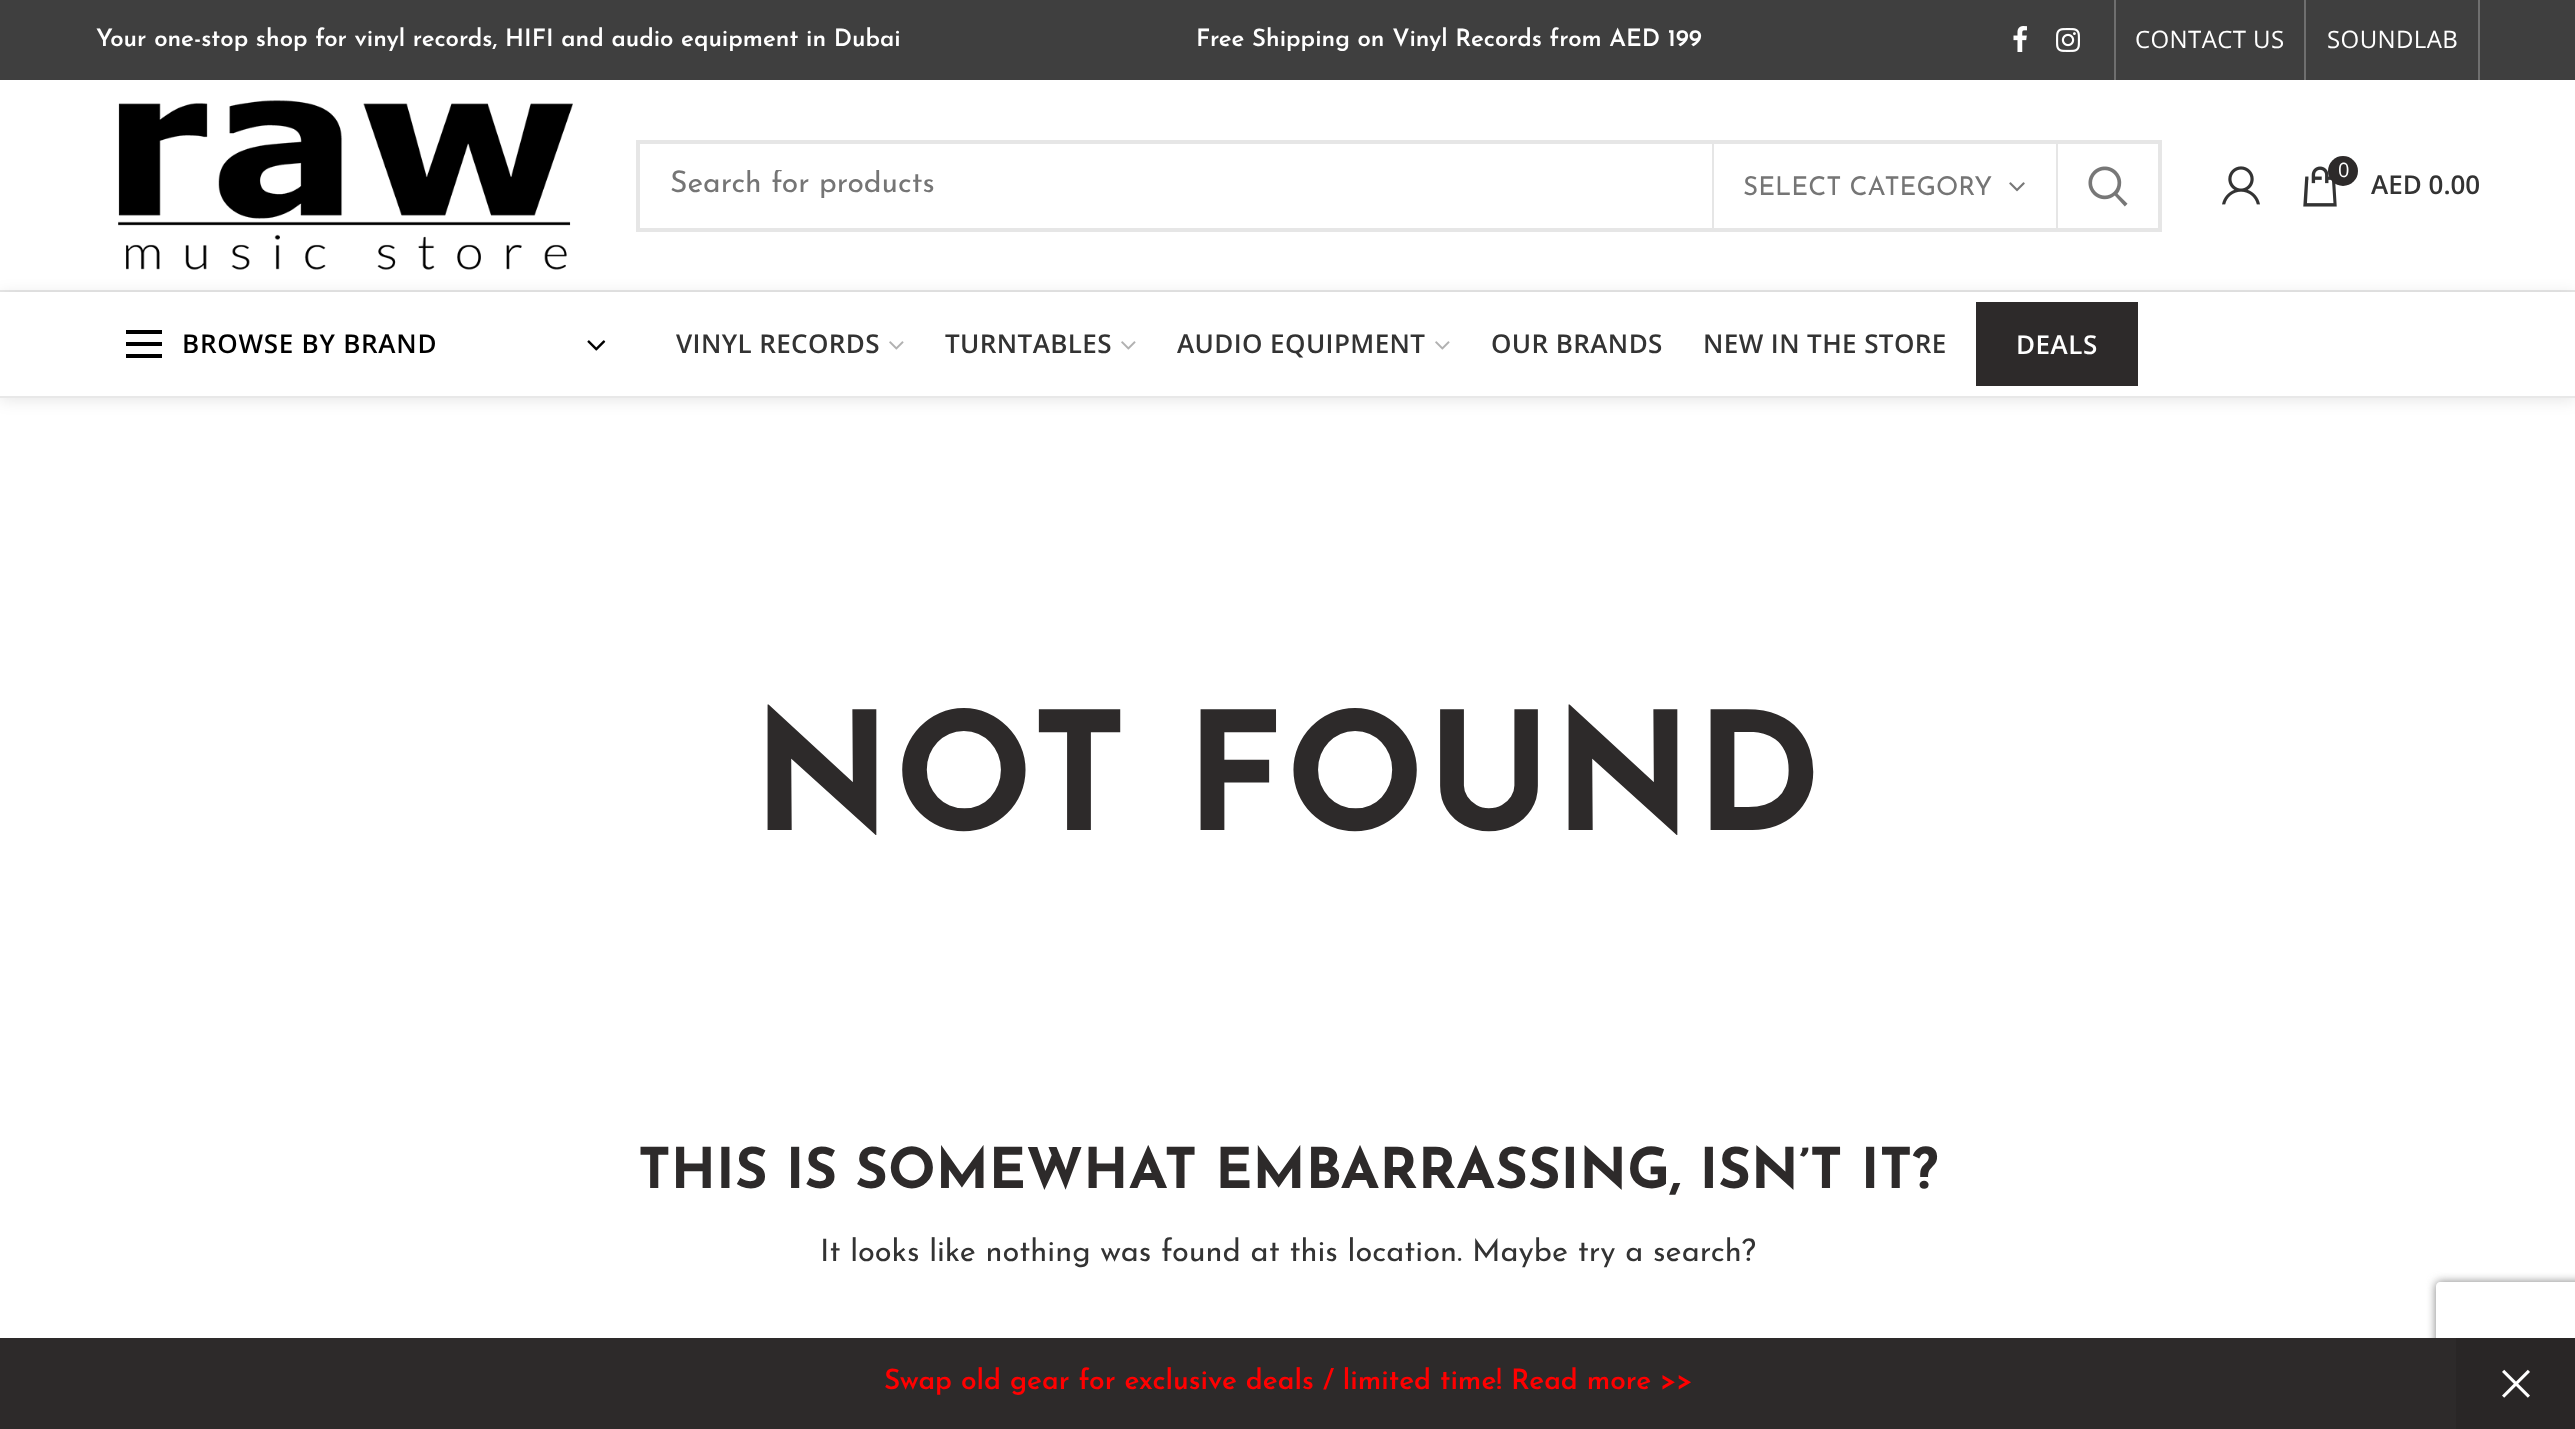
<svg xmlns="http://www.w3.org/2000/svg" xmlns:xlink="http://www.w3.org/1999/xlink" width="2575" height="1429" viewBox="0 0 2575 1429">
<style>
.cls-1{font:600 24px Josefin Sans;fill:#ffffff}
.cls-2{font:24px Open Sans;letter-spacing:0.4px;fill:#ffffff}
.cls-3{font:30px Josefin Sans;fill:#757575}
.cls-4{font:26px Josefin Sans;fill:#757575}
.cls-5{font:20px Open Sans;fill:#ffffff}
.cls-6{font:600 26px Open Sans;fill:#333333}
.cls-7{font:600 26px Open Sans;letter-spacing:0.75px;fill:#000000}
.cls-8{font:600 26px Open Sans;letter-spacing:0.4px;fill:#333333}
.cls-9{font:600 26px Open Sans;letter-spacing:0.5px;fill:#ffffff}
.cls-10{font:bold 164px Josefin Sans;letter-spacing:2px;fill:#2d2a2a}
.cls-11{font:bold 56px Josefin Sans;fill:#2d2a2a}
.cls-12{font:30.8px Josefin Sans;fill:#333333}
.cls-13{font:600 28px Josefin Sans;fill:#ff0000}
</style>
<defs>
<clipPath id="clip1"><path d="M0 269H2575V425H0ZM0 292H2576V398H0Z" clip-rule="evenodd"/></clipPath>
<clipPath id="clip2"><path d="M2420 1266H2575V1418H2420ZM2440 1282H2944C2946 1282 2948 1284 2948 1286V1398C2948 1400 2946 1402 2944 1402H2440C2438 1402 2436 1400 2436 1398V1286C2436 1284 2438 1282 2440 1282Z" clip-rule="evenodd"/></clipPath>
<clipPath id="clip3"><rect x="670" y="170" width="1358" height="30"/></clipPath>
</defs>
<rect width="100%" height="100%" fill="#ffffff"/>
<rect fill="#3f3f3f" x="0" y="0" width="2575" height="80"/>
<image xlink:href="image0.png" x="2013" y="26" width="14" height="26"/>
<image xlink:href="image1.png" x="2056" y="28" width="24" height="24"/>
<rect fill="#6f6f6f" x="2114" y="0" width="2" height="80"/>
<rect fill="#6f6f6f" x="2304" y="0" width="2" height="80"/>
<rect fill="#6f6f6f" x="2478" y="0" width="2" height="80"/>
<rect fill="#e8e8e8" x="0" y="290" width="2575" height="2"/>
<g clip-path="url(#clip1)">
<rect fill="#000000" fill-opacity="0.1" filter="blur(8px)" x="0" y="294" width="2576" height="106"/>
</g>
<image xlink:href="image2.png" x="118" y="100" width="455" height="170"/>
<rect fill="none" stroke="#e6e6e6" stroke-width="4" x="638" y="142" width="1522" height="88"/>
<rect fill="#e6e6e6" x="2056" y="144" width="2" height="84"/>
<rect fill="#e6e6e6" x="1712" y="144" width="2" height="84"/>
<image xlink:href="image3.png" x="2009" y="182" width="16" height="10"/>
<image xlink:href="image4.png" x="2088" y="166" width="40" height="41"/>
<image xlink:href="image5.png" x="2222" y="166" width="38" height="39"/>
<image xlink:href="image6.png" x="2303" y="166" width="34" height="41"/>
<circle fill="#2d2a2a" cx="2343" cy="171" r="15"/>
<rect fill="#e8e8e8" x="0" y="396" width="2575" height="2"/>
<rect fill="#000000" x="126" y="342" width="36" height="4"/>
<rect fill="#000000" x="126" y="330" width="36" height="4"/>
<rect fill="#000000" x="126" y="354" width="36" height="4"/>
<image xlink:href="image7.png" x="587" y="340" width="19" height="11"/>
<image xlink:href="image8.png" x="889" y="341" width="15" height="9"/>
<image xlink:href="image8.png" x="1121" y="341" width="15" height="9"/>
<image xlink:href="image8.png" x="1435" y="341" width="15" height="9"/>
<rect fill="#2d2a2a" x="1976" y="302" width="162" height="84"/>
<g clip-path="url(#clip2)">
<rect fill="#808080" filter="blur(5px)" x="2436" y="1282" width="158" height="120" rx="4"/>
</g>
<rect fill="#2d2a2a" x="0" y="1338" width="2456" height="91"/>
<rect fill="#292626" x="2456" y="1338" width="119" height="91"/>
<image xlink:href="image9.png" x="2502" y="1369" width="28" height="29"/>
<text class="cls-1" x="96" y="46">Your one-stop shop for vinyl records, HIFI and audio equipment in Dubai</text>
<text class="cls-1" x="1196" y="46">Free Shipping on Vinyl Records from AED 199</text>
<text class="cls-2" x="2135" y="48">CONTACT US</text>
<text class="cls-2" x="2327" y="48">SOUNDLAB</text>
<g clip-path="url(#clip3)">
<text class="cls-3" x="670" y="192">Search for products</text>
</g>
<text class="cls-4" x="1743" y="195">SELECT CATEGORY</text>
<text class="cls-5" x="2338" y="177">0</text>
<text class="cls-6" x="2371" y="194">AED 0.00</text>
<text class="cls-7" x="182" y="353">BROWSE BY BRAND</text>
<text class="cls-8" x="676" y="353">VINYL RECORDS</text>
<text class="cls-8" x="945" y="353">TURNTABLES</text>
<text class="cls-8" x="1177" y="353">AUDIO EQUIPMENT</text>
<text class="cls-8" x="1491" y="353">OUR BRANDS</text>
<text class="cls-8" x="1703" y="353">NEW IN THE STORE</text>
<text class="cls-9" x="2016" y="354">DEALS</text>
<text class="cls-10" x="752" y="830">NOT FOUND</text>
<text class="cls-11" x="638" y="1188">THIS IS SOMEWHAT EMBARRASSING, ISN’T IT?</text>
<text class="cls-12" x="820" y="1261">It looks like nothing was found at this location. Maybe try a search?</text>
<text class="cls-13" x="884" y="1389">Swap old gear for exclusive deals / limited time! Read more &gt;&gt;</text>
</svg>
